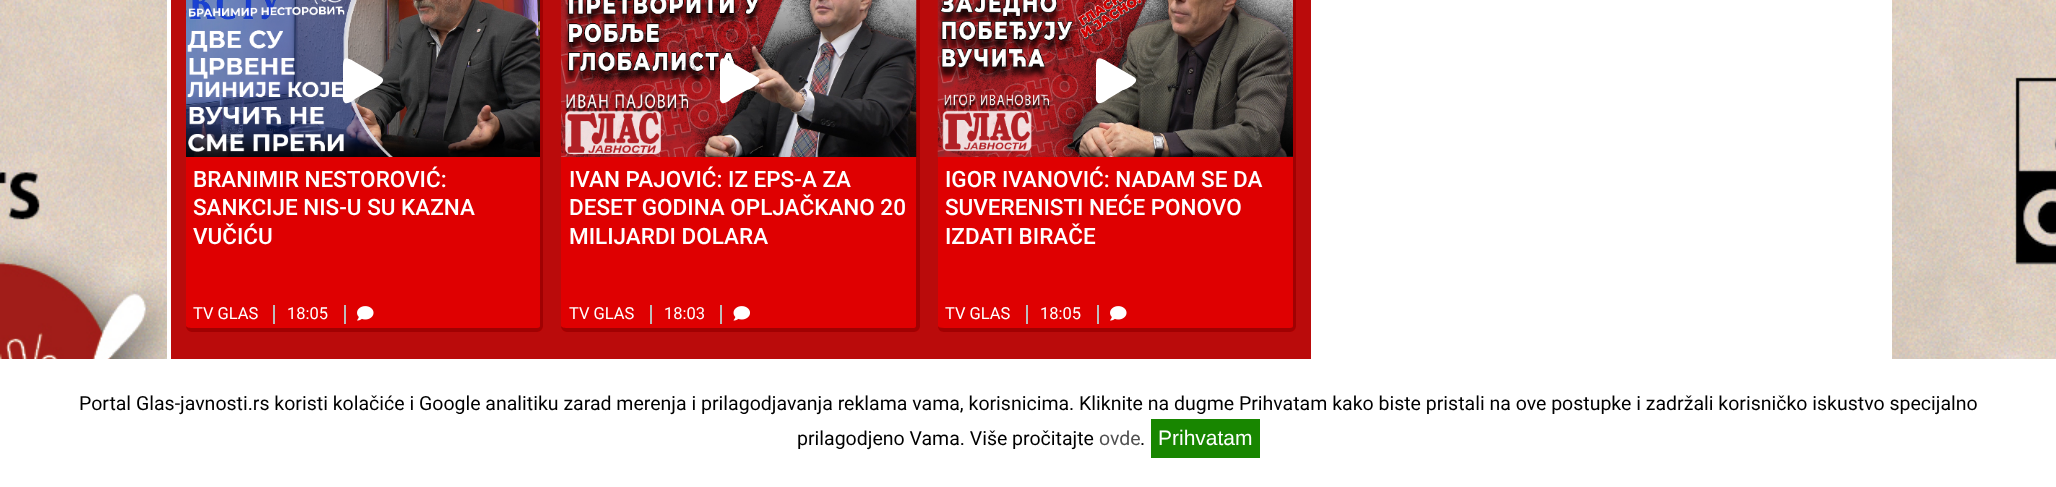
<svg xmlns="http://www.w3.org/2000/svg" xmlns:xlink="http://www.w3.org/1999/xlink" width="2056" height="487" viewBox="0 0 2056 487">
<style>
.cls-1{font:500 22.5px Roboto;fill:#ffffff}
.cls-2{font:16.5px Roboto;fill:#ffffff}
.cls-3{font:19.5px Roboto;fill:#000000}
.cls-4{font:19.5px Roboto;fill:#515151}
.cls-5{font:21px Liberation Sans;fill:#ffffff}
</style>
<rect width="100%" height="100%" fill="#ffffff"/>
<image xlink:href="image0.png" x="0" y="0" width="167" height="359"/>
<rect fill="#ba0b0b" x="171" y="0" width="1140" height="359"/>
<rect fill="#df0001" x="186" y="-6" width="357" height="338" rx="6"/>
<path fill="#880203" fill-opacity="0.72" fill-rule="evenodd" d="M192-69H537C540-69 543-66 543-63V326C543 329 540 332 537 332H192C189 332 186 329 186 326V-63C186-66 189-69 192-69ZM192-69H537C539-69 540-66 540-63V326C540 327 539 328 537 328H192C189 328 186 327 186 326V-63C186-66 189-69 192-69Z"/>
<image xlink:href="image1.png" x="186" y="0" width="354" height="157"/>
<path fill="#ffffff" d="M381 77C389 82 372 90 370 90L355 99C352 101 349 104 345 103C342 101 343 96 343 93V68C343 57 345 56 355 62Z"/>
<rect fill="#bdbcbc" x="273" y="305" width="2" height="19"/>
<rect fill="#bdbcbc" x="344" y="305" width="2" height="19"/>
<image xlink:href="image2.png" x="357" y="306" width="17" height="15"/>
<rect fill="#df0001" x="561" y="-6" width="359" height="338" rx="6"/>
<path fill="#880203" fill-opacity="0.72" fill-rule="evenodd" d="M567-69H914C917-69 920-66 920-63V326C920 329 917 332 914 332H567C564 332 561 329 561 326V-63C561-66 564-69 567-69ZM567-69H914C915-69 916-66 916-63V326C916 327 915 328 914 328H567C564 328 561 327 561 326V-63C561-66 564-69 567-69Z"/>
<image xlink:href="image3.png" x="561" y="0" width="356" height="157"/>
<path fill="#ffffff" d="M757 77C766 82 748 90 747 90L731 99C729 101 725 104 722 103C719 101 720 96 720 93V68C720 57 721 56 731 62Z"/>
<rect fill="#bdbcbc" x="650" y="305" width="2" height="19"/>
<rect fill="#bdbcbc" x="720" y="305" width="2" height="19"/>
<image xlink:href="image4.png" x="733" y="306" width="17" height="15"/>
<rect fill="#df0001" x="938" y="-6" width="358" height="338" rx="6"/>
<path fill="#880203" fill-opacity="0.72" fill-rule="evenodd" d="M944-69H1290C1293-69 1296-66 1296-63V326C1296 329 1293 332 1290 332H944C940 332 938 329 938 326V-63C938-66 940-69 944-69ZM944-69H1290C1292-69 1293-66 1293-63V326C1293 327 1292 328 1290 328H944C940 328 938 327 938 326V-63C938-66 940-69 944-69Z"/>
<image xlink:href="image5.png" x="937" y="0" width="356" height="157"/>
<path fill="#ffffff" d="M1134 77C1142 82 1125 90 1123 90L1108 99C1105 101 1102 104 1098 103C1095 101 1096 96 1096 93V68C1096 57 1098 56 1108 62Z"/>
<rect fill="#bdbcbc" x="1026" y="305" width="2" height="19"/>
<rect fill="#bdbcbc" x="1097" y="305" width="2" height="19"/>
<image xlink:href="image2.png" x="1110" y="306" width="17" height="15"/>
<image xlink:href="image6.png" x="1892" y="0" width="164" height="359"/>
<rect fill="#188600" x="1151" y="419" width="109" height="39"/>
<text class="cls-1"><tspan x="193" y="187">BRANIMIR NESTOROVIĆ:</tspan><tspan x="193" y="215">SANKCIJE NIS-U SU KAZNA</tspan><tspan x="193" y="244">VUČIĆU</tspan></text>
<text class="cls-2" x="193" y="319">TV GLAS</text>
<text class="cls-2" x="287" y="319">18:05</text>
<text class="cls-1"><tspan x="569" y="187">IVAN PAJOVIĆ: IZ EPS-A ZA</tspan><tspan x="569" y="215">DESET GODINA OPLJAČKANO 20</tspan><tspan x="569" y="244">MILIJARDI DOLARA</tspan></text>
<text class="cls-2" x="569" y="319">TV GLAS</text>
<text class="cls-2" x="664" y="319">18:03</text>
<text class="cls-1"><tspan x="945" y="187">IGOR IVANOVIĆ: NADAM SE DA</tspan><tspan x="945" y="215">SUVERENISTI NEĆE PONOVO</tspan><tspan x="945" y="244">IZDATI BIRAČE</tspan></text>
<text class="cls-2" x="945" y="319">TV GLAS</text>
<text class="cls-2" x="1040" y="319">18:05</text>
<text class="cls-3" x="79" y="410">Portal Glas-javnosti.rs koristi kolačiće i Google analitiku zarad merenja i prilagodjavanja reklama vama, korisnicima. Kliknite na dugme Prihvatam kako biste pristali na ove postupke i zadržali korisničko iskustvo specijalno</text>
<text class="cls-3" x="797" y="445">prilagodjeno Vama. Više pročitajte</text>
<text class="cls-4" x="1099" y="445">ovde</text>
<text class="cls-3" x="1140" y="445">.</text>
<text class="cls-5" x="1158" y="445">Prihvatam</text>
</svg>
